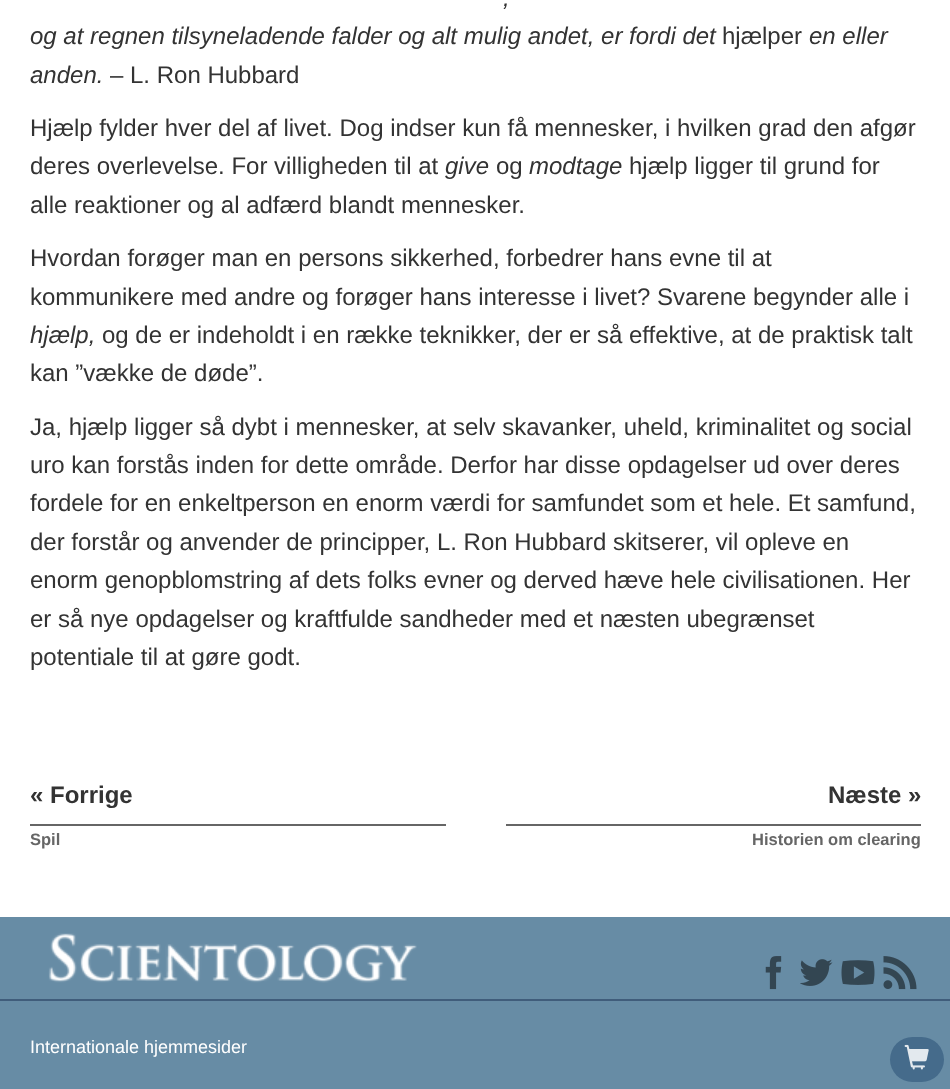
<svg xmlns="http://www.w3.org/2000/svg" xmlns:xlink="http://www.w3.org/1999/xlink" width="950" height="1089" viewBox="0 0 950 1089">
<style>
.cls-1{font:italic 24px Liberation Sans;fill:#333333}
.cls-2{font:24px Liberation Sans;fill:#333333}
.cls-3{font:bold 24px Liberation Sans;fill:#333333}
.cls-4{font:bold 16.5px Liberation Sans;fill:#666666}
.cls-5{font:18px Liberation Sans;fill:#ffffff}
</style>
<rect width="100%" height="100%" fill="#ffffff"/>
<rect fill="#666666" x="30" y="824" width="416" height="2"/>
<rect fill="#666666" x="506" y="824" width="415" height="2"/>
<rect fill="#678ca5" x="0" y="917" width="950" height="172"/>
<image xlink:href="image0.png" x="48" y="933" width="369" height="50"/>
<image xlink:href="image1.png" x="765" y="956" width="17" height="34"/>
<image xlink:href="image2.png" x="800" y="959" width="33" height="27"/>
<image xlink:href="image3.png" x="841" y="960" width="34" height="25"/>
<image xlink:href="image4.png" x="883" y="956" width="34" height="34"/>
<rect fill="#405d7b" x="0" y="999" width="950" height="2"/>
<rect fill="#456b8b" x="890" y="1037" width="54" height="45" rx="22.5"/>
<image xlink:href="image5.png" x="904" y="1044" width="25" height="26"/>
<text class="cls-1" x="503" y="6">,</text>
<text class="cls-1" x="30" y="44">og at regnen tilsyneladende falder og alt mulig andet, er fordi det</text>
<text class="cls-2" x="722" y="44">hjælper</text>
<text class="cls-1" x="809" y="44">en eller</text>
<text class="cls-1" x="30" y="83">anden.</text>
<text class="cls-2" x="110" y="83">– L. Ron Hubbard</text>
<text class="cls-2"><tspan x="30" y="136">Hjælp fylder hver del af livet. Dog indser kun få mennesker, i hvilken grad den afgør</tspan><tspan x="30" y="174">deres overlevelse. For villigheden til at</tspan></text>
<text class="cls-1" x="445" y="174">give</text>
<text class="cls-2" x="496" y="174">og</text>
<text class="cls-1" x="529" y="174">modtage</text>
<text class="cls-2" x="629" y="174">hjælp ligger til grund for</text>
<text class="cls-2" x="30" y="213">alle reaktioner og al adfærd blandt mennesker.</text>
<text class="cls-2"><tspan x="30" y="266">Hvordan forøger man en persons sikkerhed, forbedrer hans evne til at</tspan><tspan x="30" y="305">kommunikere med andre og forøger hans interesse i livet? Svarene begynder alle i</tspan></text>
<text class="cls-1" x="30" y="343">hjælp,</text>
<text class="cls-2" x="102" y="343">og de er indeholdt i en række teknikker, der er så effektive, at de praktisk talt</text>
<text class="cls-2" x="30" y="381">kan ”vække de døde”.</text>
<text class="cls-2"><tspan x="30" y="435">Ja, hjælp ligger så dybt i mennesker, at selv skavanker, uheld, kriminalitet og social</tspan><tspan x="30" y="473">uro kan forstås inden for dette område. Derfor har disse opdagelser ud over deres</tspan><tspan x="30" y="511">fordele for en enkeltperson en enorm værdi for samfundet som et hele. Et samfund,</tspan><tspan x="30" y="550">der forstår og anvender de principper, L. Ron Hubbard skitserer, vil opleve en</tspan><tspan x="30" y="588">enorm genopblomstring af dets folks evner og derved hæve hele civilisationen. Her</tspan><tspan x="30" y="627">er så nye opdagelser og kraftfulde sandheder med et næsten ubegrænset</tspan><tspan x="30" y="665">potentiale til at gøre godt.</tspan></text>
<text class="cls-3" x="30" y="803">« Forrige</text>
<text class="cls-4" x="30" y="845">Spil</text>
<text class="cls-3" x="828" y="803">Næste »</text>
<text class="cls-4" x="752" y="845">Historien om clearing</text>
<text class="cls-5" x="30" y="1053">Internationale hjemmesider</text>
</svg>
